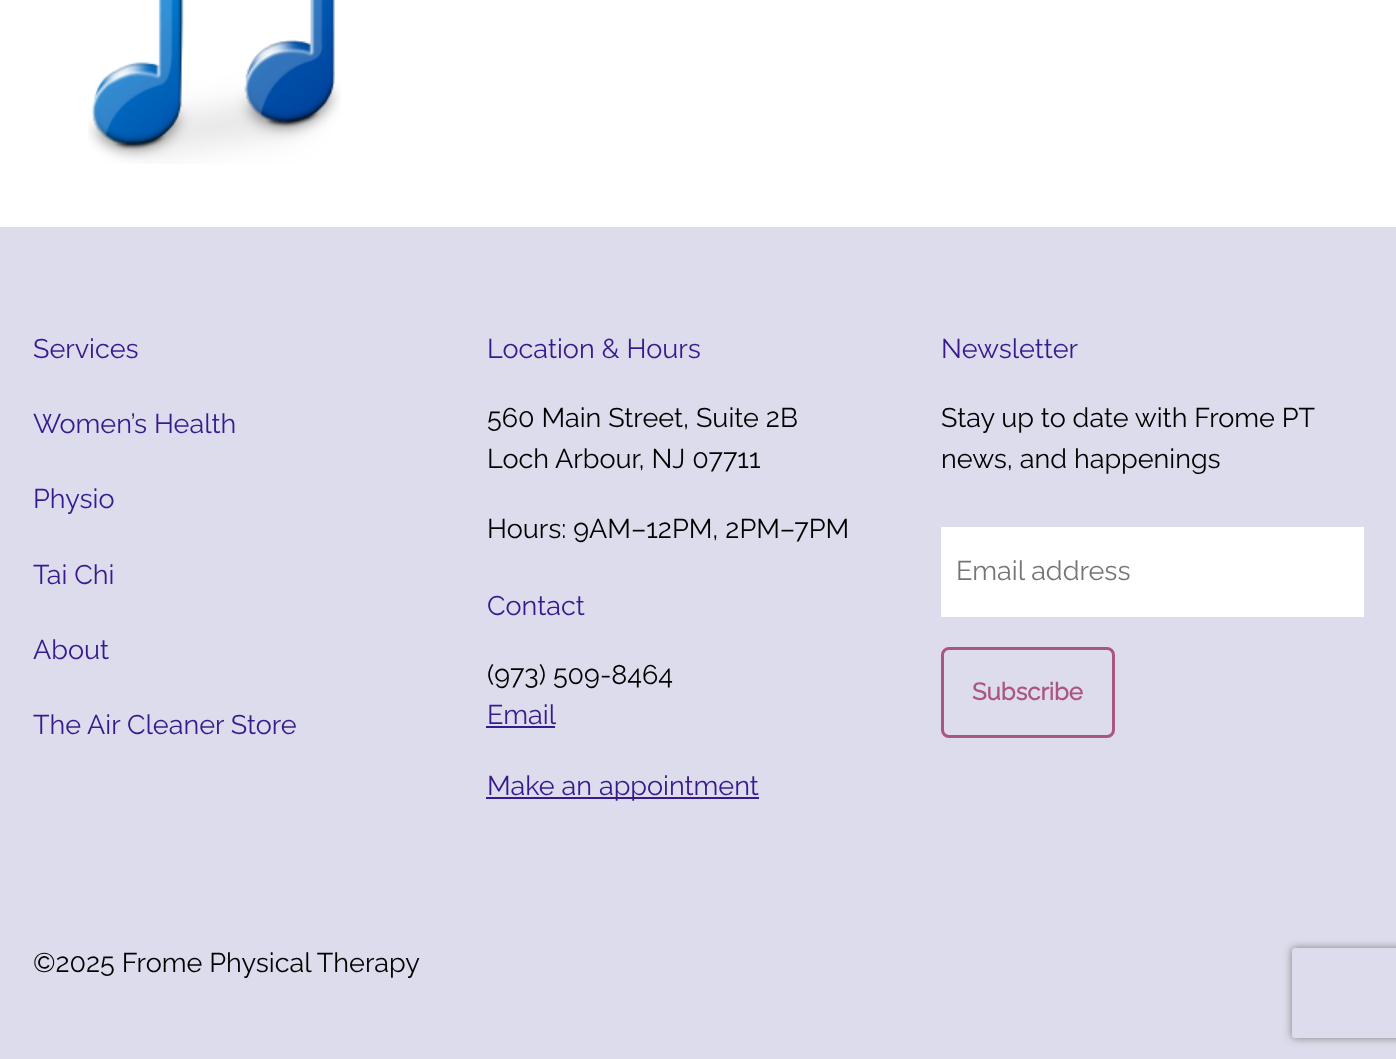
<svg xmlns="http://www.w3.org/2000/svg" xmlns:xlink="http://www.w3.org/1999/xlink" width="1396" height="1059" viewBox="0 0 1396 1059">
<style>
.cls-1{font:100 27px Raleway;fill:#371a8d}
.cls-2{font:100 27px Raleway;fill:#000000}
.cls-3{font:100 27px Raleway;fill:#757575}
.cls-4{font:bold 24px Raleway;fill:#aa5582}
</style>
<defs>
<clipPath id="clip1"><path d="M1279 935H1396V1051H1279ZM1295 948H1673C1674.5 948 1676 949.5 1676 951V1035C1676 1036.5 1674.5 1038 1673 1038H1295C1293.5 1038 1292 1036.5 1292 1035V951C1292 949.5 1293.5 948 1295 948Z" clip-rule="evenodd"/></clipPath>
</defs>
<rect width="100%" height="100%" fill="#ffffff"/>
<image xlink:href="image0.png" x="88" y="0" width="253" height="164"/>
<rect fill="#dcdcec" x="0" y="227" width="1396" height="832"/>
<rect fill="#371a8d" x="486" y="726" width="69" height="2"/>
<rect fill="#371a8d" x="486" y="797" width="273" height="2"/>
<rect fill="#ffffff" x="941" y="527" width="423" height="90"/>
<rect fill="none" stroke="#aa5582" stroke-width="3" x="942.5" y="648.5" width="171" height="88" rx="6.5"/>
<g clip-path="url(#clip1)">
<rect fill="#808080" filter="blur(4px)" x="1292" y="948" width="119" height="90" rx="3"/>
</g>
<text class="cls-1" x="33" y="358">Services</text>
<text class="cls-1" x="33" y="433">Women’s Health</text>
<text class="cls-1" x="33" y="508">Physio</text>
<text class="cls-1" x="33" y="584">Tai Chi</text>
<text class="cls-1" x="33" y="659">About</text>
<text class="cls-1" x="33" y="734">The Air Cleaner Store</text>
<text class="cls-1" x="487" y="358">Location &amp; Hours</text>
<text class="cls-2"><tspan x="487" y="427">560 Main Street, Suite 2B</tspan><tspan x="487" y="468">Loch Arbour, NJ 07711</tspan></text>
<text class="cls-2" x="487" y="538">Hours: 9AM–12PM, 2PM–7PM</text>
<text class="cls-1" x="487" y="615">Contact</text>
<text class="cls-2" x="487" y="684">(973) 509-8464</text>
<text class="cls-1" x="487" y="724">Email</text>
<text class="cls-1" x="487" y="795">Make an appointment</text>
<text class="cls-1" x="941" y="358">Newsletter</text>
<text class="cls-2"><tspan x="941" y="427">Stay up to date with Frome PT</tspan><tspan x="941" y="468">news, and happenings</tspan></text>
<text class="cls-3" x="956" y="580">Email address</text>
<text class="cls-4" x="972" y="700">Subscribe</text>
<text class="cls-2" x="33" y="972">©2025 Frome Physical Therapy</text>
</svg>
